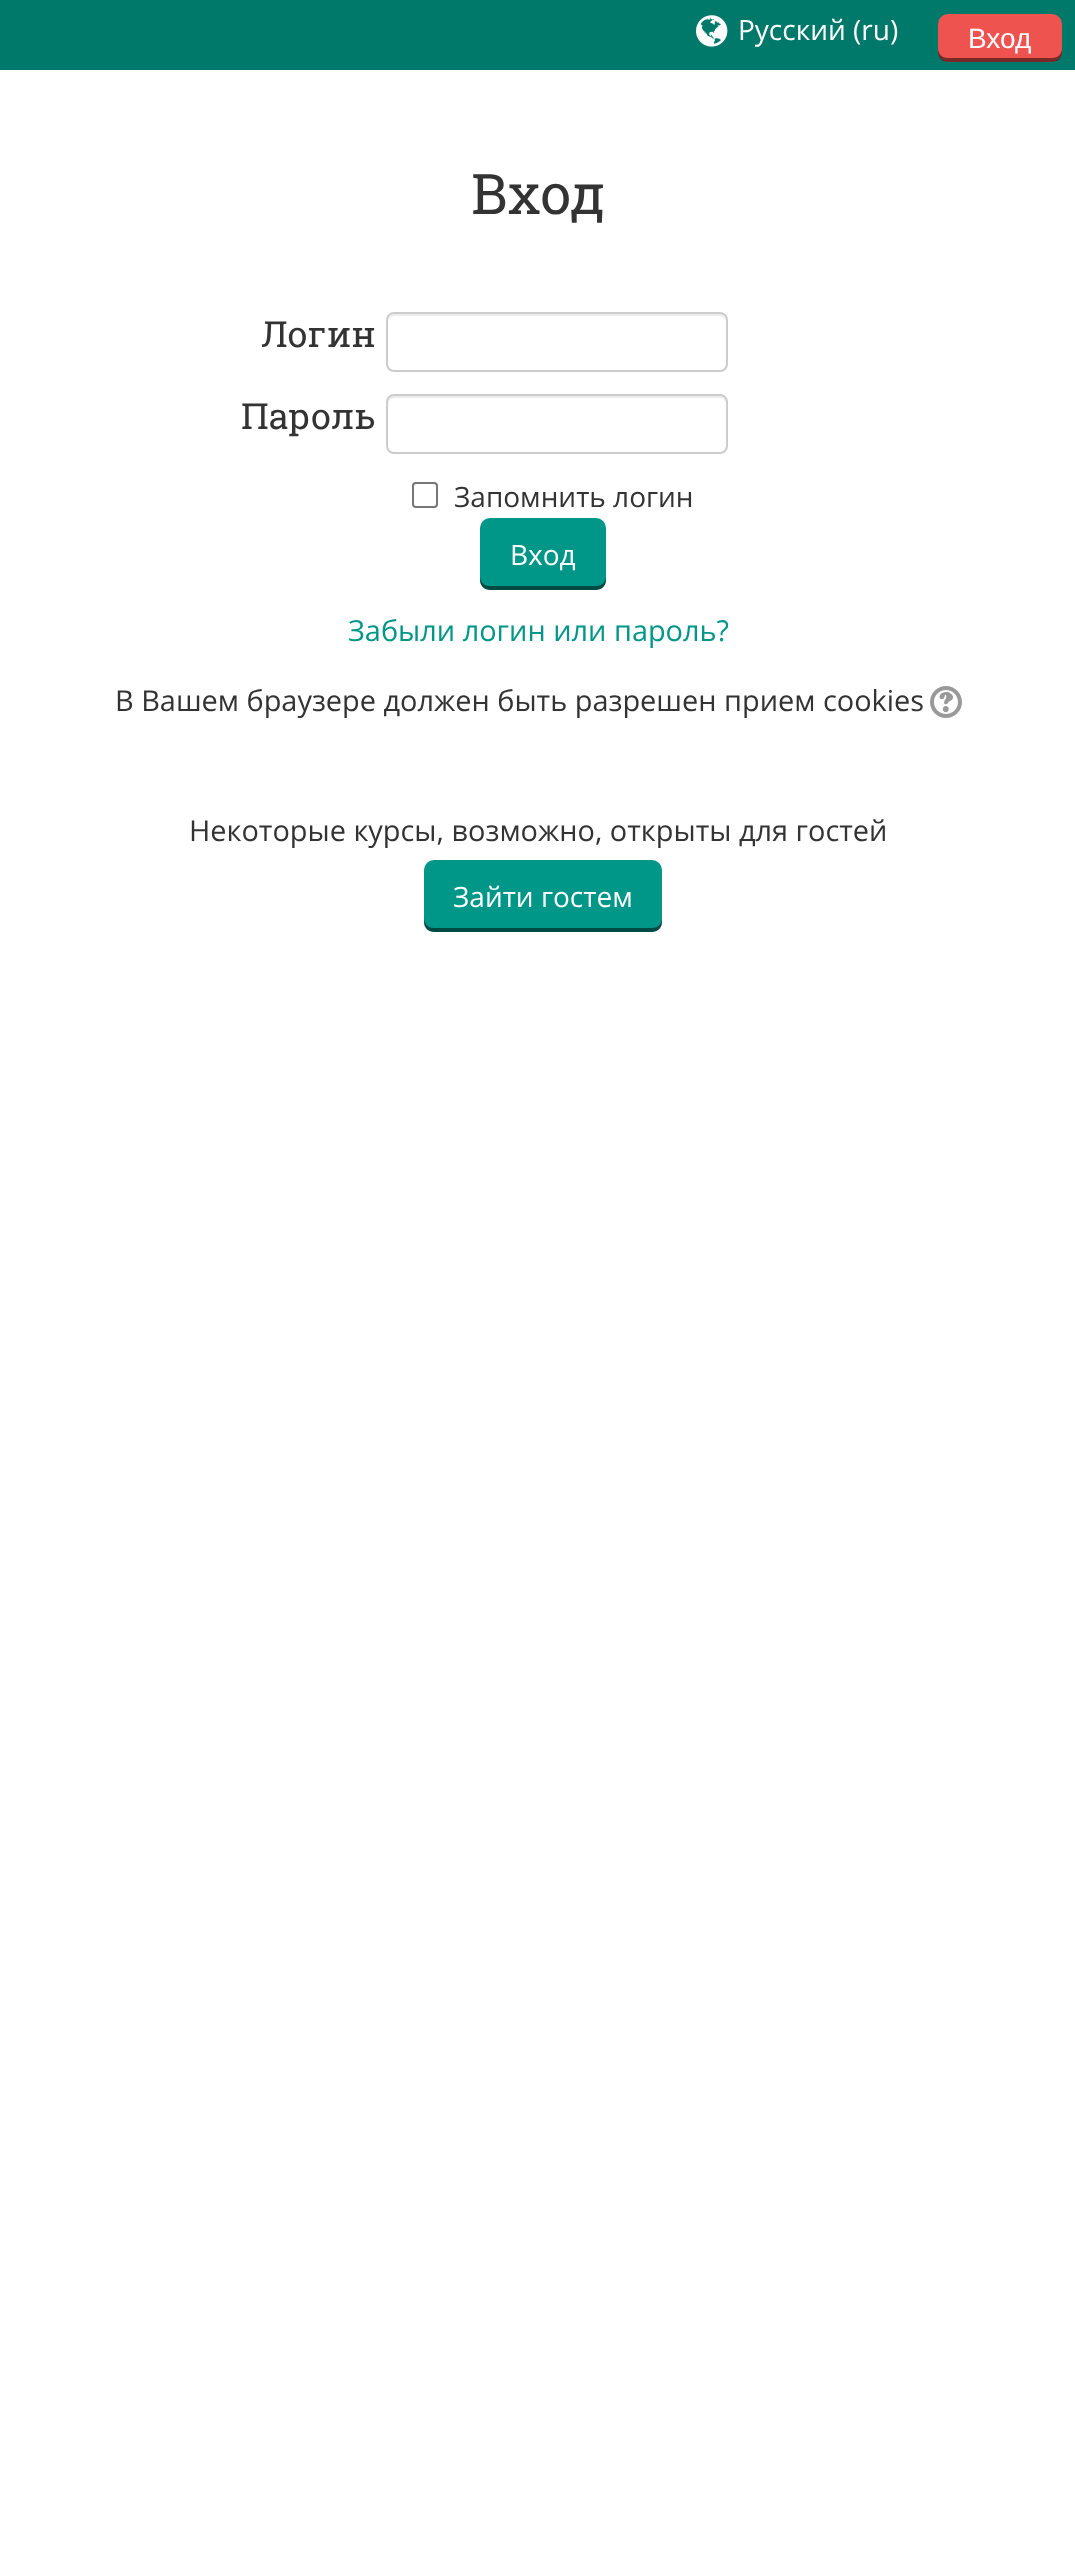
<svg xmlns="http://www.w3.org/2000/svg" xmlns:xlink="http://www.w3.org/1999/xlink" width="1075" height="2549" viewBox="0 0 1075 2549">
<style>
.cls-1{font:28px Open Sans;fill:#ffffff}
.cls-2{font:28px Liberation Sans;fill:#ffffff}
.cls-3{font:56px Roboto Slab;fill:#333333}
.cls-4{font:36px Roboto Slab;fill:#333333}
.cls-5{font:28px Open Sans;fill:#333333}
.cls-6{font:28.9px Open Sans;fill:#009688}
.cls-7{font:28.9px Open Sans;fill:#333333}
</style>
<rect width="100%" height="100%" fill="#ffffff"/>
<rect fill="#00796b" x="0" y="0" width="1075" height="70"/>
<image xlink:href="image0.png" x="696" y="15" width="32" height="32"/>
<rect fill="#ef5350" x="938" y="14" width="124" height="48" rx="10"/>
<path fill="#000000" fill-opacity="0.5" d="M938 48V52C938 58 942 62 948 62H1052C1058 62 1062 58 1062 52V48C1062 54 1058 58 1052 58H948C942 58 938 54 938 48Z"/>
<path fill="#ececec" d="M394 316H720C723 316 726 319 726 322V320C726 317 723 314 720 314H394C391 314 388 317 388 320V322C388 319 391 316 394 316Z"/>
<rect fill="none" stroke="#cccccc" stroke-width="2" x="387" y="313" width="340" height="58" rx="7"/>
<path fill="#ececec" d="M394 398H720C723 398 726 401 726 404V402C726 399 723 396 720 396H394C391 396 388 399 388 402V404C388 401 391 398 394 398Z"/>
<rect fill="none" stroke="#cccccc" stroke-width="2" x="387" y="395" width="340" height="58" rx="7"/>
<rect fill="none" stroke="#767676" stroke-width="2" x="413" y="483" width="24" height="24" rx="3"/>
<rect fill="#009688" x="480" y="518" width="126" height="72" rx="10"/>
<path fill="#000000" fill-opacity="0.5" d="M480 576V580C480 586 484 590 490 590H596C602 590 606 586 606 580V576C606 582 602 586 596 586H490C484 586 480 582 480 576Z"/>
<image xlink:href="image1.png" x="930" y="686" width="32" height="32"/>
<rect fill="#009688" x="424" y="860" width="238" height="72" rx="10"/>
<path fill="#000000" fill-opacity="0.5" d="M424 918V922C424 928 428 932 434 932H652C658 932 662 928 662 922V918C662 924 658 928 652 928H434C428 928 424 924 424 918Z"/>
<text class="cls-1" x="738" y="40">Русский (ru)</text>
<text class="cls-2" x="968" y="48">Вход</text>
<text class="cls-3" x="471" y="214">Вход</text>
<text class="cls-4" x="261" y="347">Логин</text>
<text class="cls-4" x="241" y="429">Пароль</text>
<text class="cls-5" x="454" y="507">Запомнить логин</text>
<text class="cls-1" x="510" y="565">Вход</text>
<text class="cls-6" x="348" y="641">Забыли логин или пароль?</text>
<text class="cls-7" x="115" y="711">В Вашем браузере должен быть разрешен прием cookies</text>
<text class="cls-7" x="189" y="841">Некоторые курсы, возможно, открыты для гостей</text>
<text class="cls-1" x="453" y="907">Зайти гостем</text>
</svg>
